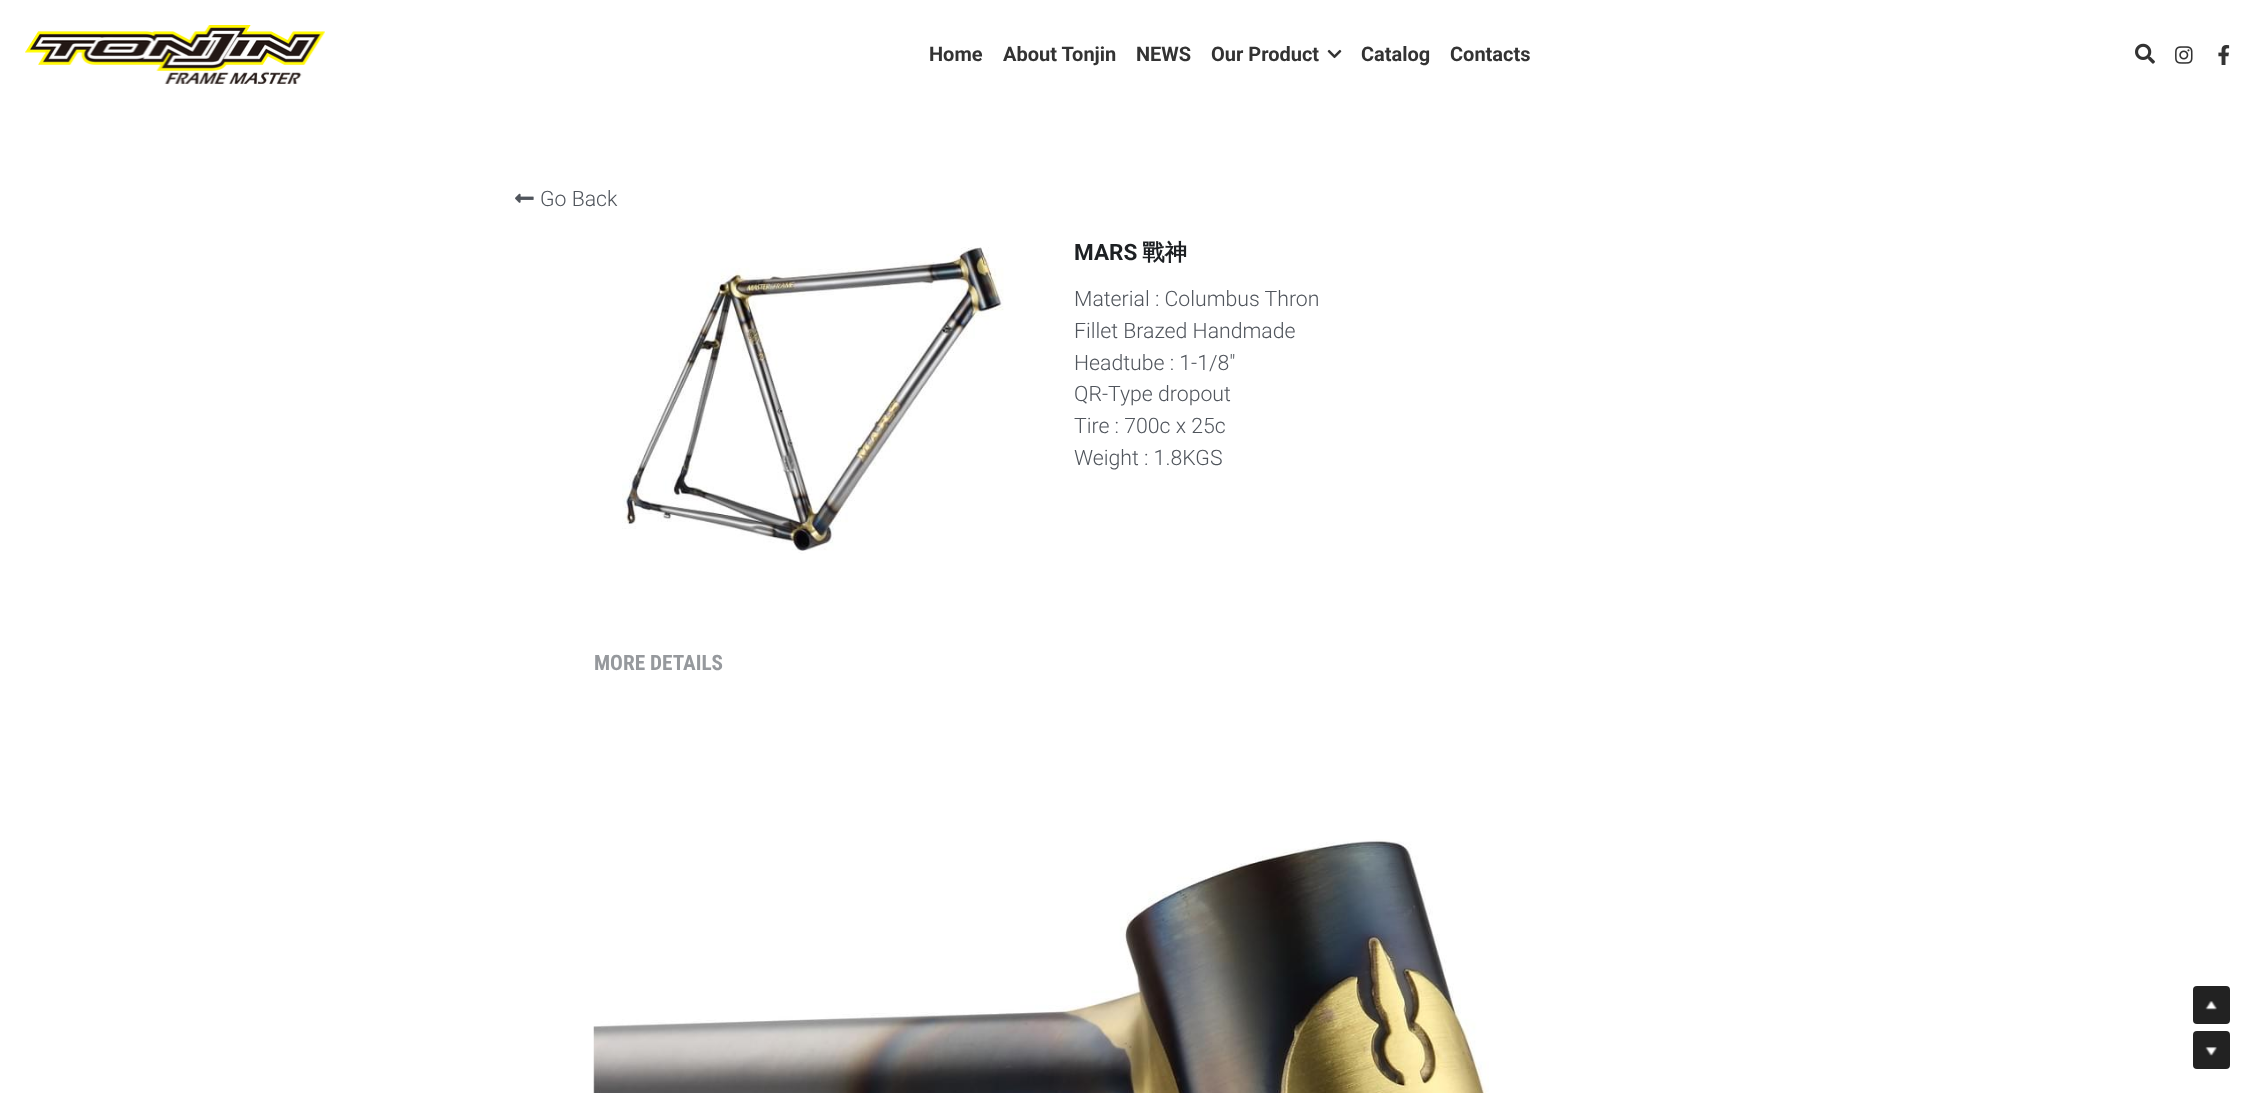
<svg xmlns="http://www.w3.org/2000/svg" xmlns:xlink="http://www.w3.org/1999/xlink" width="2254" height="1093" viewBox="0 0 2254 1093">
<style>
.cls-1{font:bold 20px Roboto;fill:#333333}
.cls-2{font:300 21.25px Roboto;fill:#50555c}
.cls-3{font:bold 22.5px Roboto;fill:#1d2023}
.cls-4{font:bold 22.5px WenQuanYi Zen Hei;fill:#1d2023}
.cls-5{font:bold 21.25px Roboto Condensed;fill:#96999d}
</style>
<rect width="100%" height="100%" fill="#ffffff"/>
<image xlink:href="image0.png" x="25" y="25" width="300" height="59"/>
<image xlink:href="image1.png" x="1327" y="49" width="15" height="10"/>
<image xlink:href="image2.png" x="2135" y="43" width="20" height="21"/>
<image xlink:href="image3.png" x="2175" y="46" width="18" height="18"/>
<image xlink:href="image4.png" x="2218" y="45" width="12" height="20"/>
<image xlink:href="image5.png" x="515" y="193" width="19" height="10"/>
<image xlink:href="image6.png" x="622" y="247" width="382" height="307"/>
<image xlink:href="image7.png" x="593" y="839" width="896" height="254"/>
<rect fill="#222222" x="2193" y="986" width="37" height="38" rx="4"/>
<image xlink:href="image8.png" x="2205" y="1001" width="12" height="9"/>
<rect fill="#222222" x="2193" y="1031" width="37" height="38" rx="4"/>
<image xlink:href="image9.png" x="2205" y="1047" width="12" height="9"/>
<text class="cls-1" x="929" y="61">Home</text>
<text class="cls-1" x="1003" y="61">About Tonjin</text>
<text class="cls-1" x="1136" y="61">NEWS</text>
<text class="cls-1" x="1211" y="61">Our Product</text>
<text class="cls-1" x="1361" y="61">Catalog</text>
<text class="cls-1" x="1450" y="61">Contacts</text>
<text class="cls-2" x="540" y="206">Go Back</text>
<text class="cls-3" x="1074" y="260">MARS</text>
<text class="cls-4" x="1142" y="260">戰神</text>
<text class="cls-2"><tspan x="1074" y="306">Material : Columbus Thron</tspan><tspan x="1074" y="338">Fillet Brazed Handmade</tspan><tspan x="1074" y="370">Headtube : 1-1/8"</tspan><tspan x="1074" y="401">QR-Type dropout</tspan><tspan x="1074" y="433">Tire : 700c x 25c</tspan><tspan x="1074" y="465">Weight : 1.8KGS</tspan></text>
<text class="cls-5" x="594" y="670">MORE DETAILS</text>
</svg>
